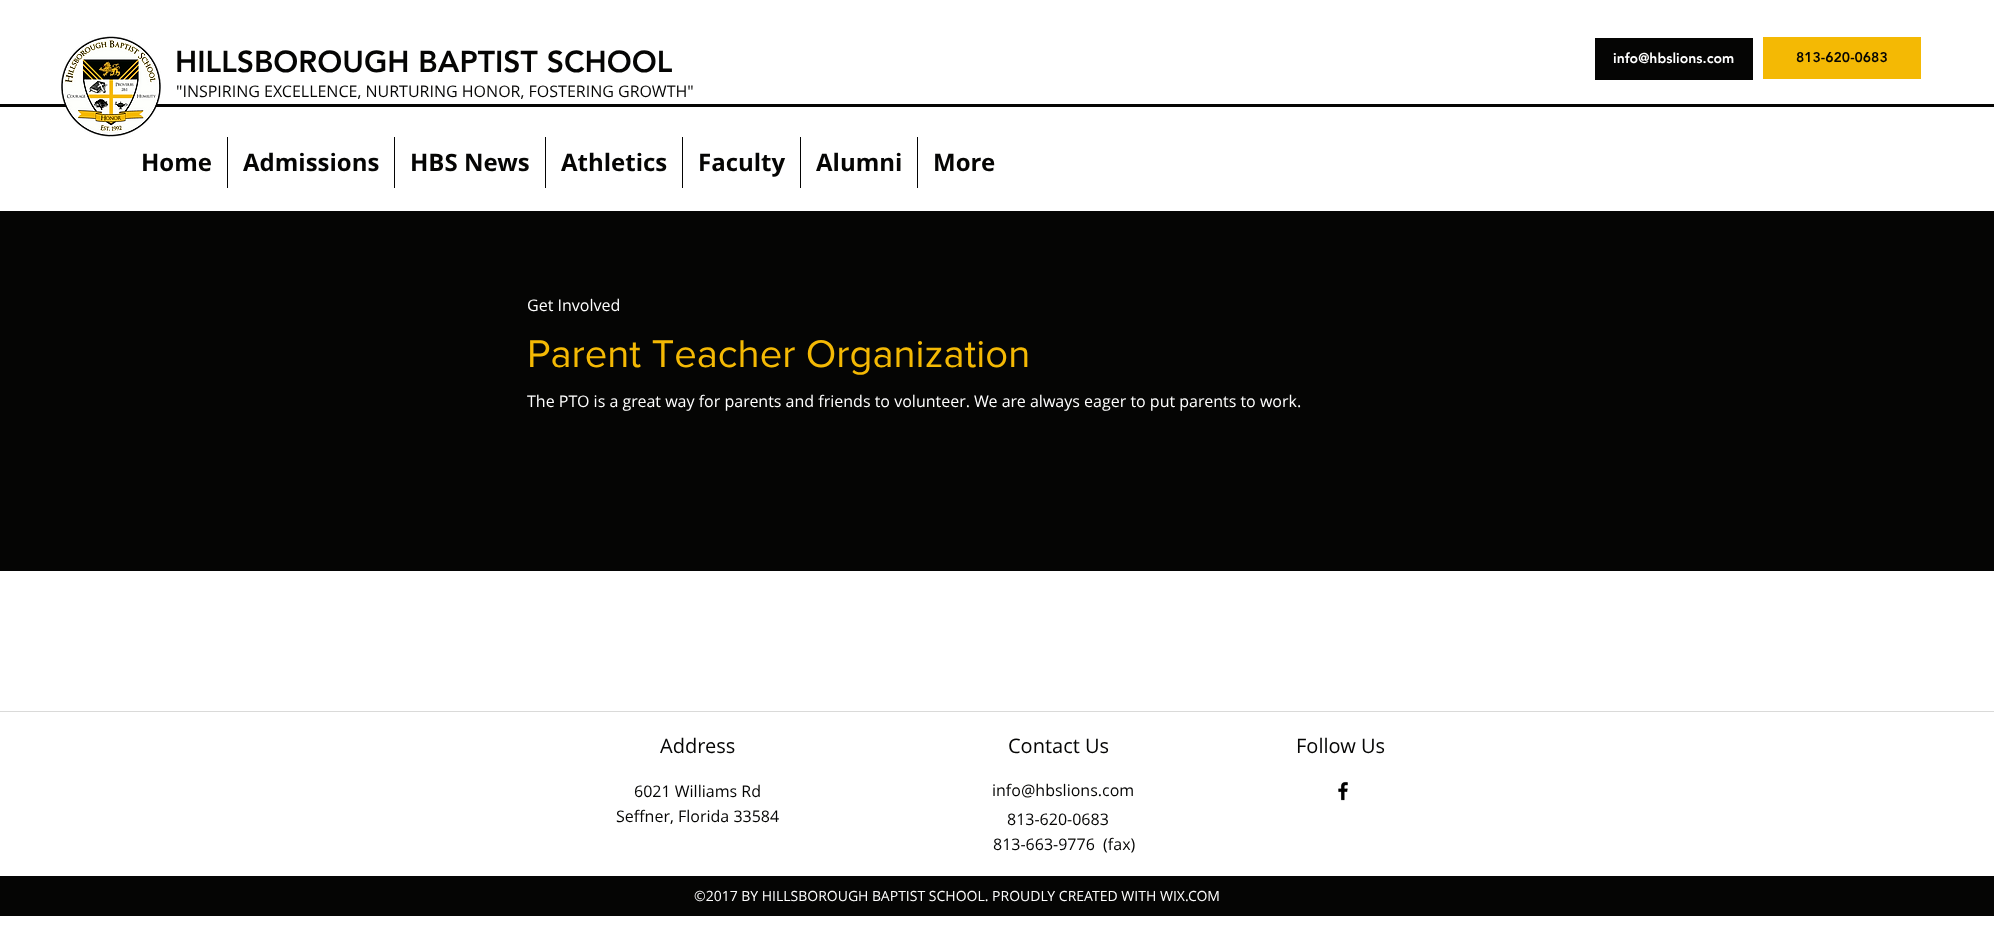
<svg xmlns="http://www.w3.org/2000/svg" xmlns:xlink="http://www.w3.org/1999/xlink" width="1994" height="943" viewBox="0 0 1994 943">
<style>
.cls-1{font:900 30px 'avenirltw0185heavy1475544';fill:#050504}
.cls-2{font:bold 24px Open Sans;fill:#050504}
.cls-3{font:900 14px 'avenirltw0185heavy1475544';fill:#ffffff}
.cls-4{font:900 14px 'avenirltw0185heavy1475544';fill:#050504}
.cls-5{font:16px Open Sans;fill:#050504}
.cls-6{font:16px Open Sans;fill:#ffffff}
.cls-7{font:40px 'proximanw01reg';fill:#f4b904}
.cls-8{font:20px Open Sans;fill:#050504}
.cls-9{font:14px Open Sans;fill:#ffffff}
</style>
<rect width="100%" height="100%" fill="#ffffff"/>
<rect fill="#050504" x="227" y="137" width="1" height="51"/>
<rect fill="#050504" x="394" y="137" width="1" height="51"/>
<rect fill="#050504" x="545" y="137" width="1" height="51"/>
<rect fill="#050504" x="682" y="137" width="1" height="51"/>
<rect fill="#050504" x="800" y="137" width="1" height="51"/>
<rect fill="#050504" x="917" y="137" width="1" height="51"/>
<rect fill="#050504" x="1595" y="38" width="158" height="42"/>
<rect fill="#f4b904" x="1763" y="37" width="158" height="42"/>
<rect fill="#050504" x="0" y="104" width="1994" height="3"/>
<image xlink:href="image0.png" x="61" y="36" width="100" height="101"/>
<rect fill="#050504" x="0" y="211" width="1994" height="360"/>
<rect fill="#dadad9" x="0" y="711" width="1994" height="1"/>
<image xlink:href="image1.png" x="1338" y="781" width="10" height="20"/>
<rect fill="#050504" x="0" y="876" width="1994" height="40"/>
<text class="cls-1" x="175" y="72">HILLSBOROUGH BAPTIST SCHOOL</text>
<text class="cls-2" x="141" y="171">Home</text>
<text class="cls-2" x="243" y="171">Admissions</text>
<text class="cls-2" x="410" y="171">HBS News</text>
<text class="cls-2" x="561" y="171">Athletics</text>
<text class="cls-2" x="698" y="171">Faculty</text>
<text class="cls-2" x="816" y="171">Alumni</text>
<text class="cls-2" x="933" y="171">More</text>
<text class="cls-3" x="1613" y="63">info@hbslions.com</text>
<text class="cls-4" x="1796" y="62">813-620-0683</text>
<text class="cls-5" x="176" y="97">"INSPIRING EXCELLENCE, NURTURING HONOR, FOSTERING GROWTH"</text>
<text class="cls-6" x="527" y="311">Get Involved</text>
<text class="cls-7" x="527" y="367">Parent Teacher Organization</text>
<text class="cls-6" x="527" y="407">The PTO is a great way for parents and friends to volunteer. We are always eager to put parents to work.</text>
<text class="cls-8" x="660" y="753">Address</text>
<text class="cls-8" x="1008" y="753">Contact Us</text>
<text class="cls-8" x="1296" y="753">Follow Us</text>
<text class="cls-5" x="634" y="797">6021 Williams Rd</text>
<text class="cls-5" x="616" y="822">Seffner, Florida 33584</text>
<text class="cls-5" x="992" y="796">info@hbslions.com</text>
<text class="cls-5" x="1007" y="825">813-620-0683</text>
<text class="cls-5" xml:space="preserve" x="993" y="850">813-663-9776  (fax)</text>
<text class="cls-9" x="694" y="901">©2017 BY HILLSBOROUGH BAPTIST SCHOOL. PROUDLY CREATED WITH WIX.COM</text>
</svg>
